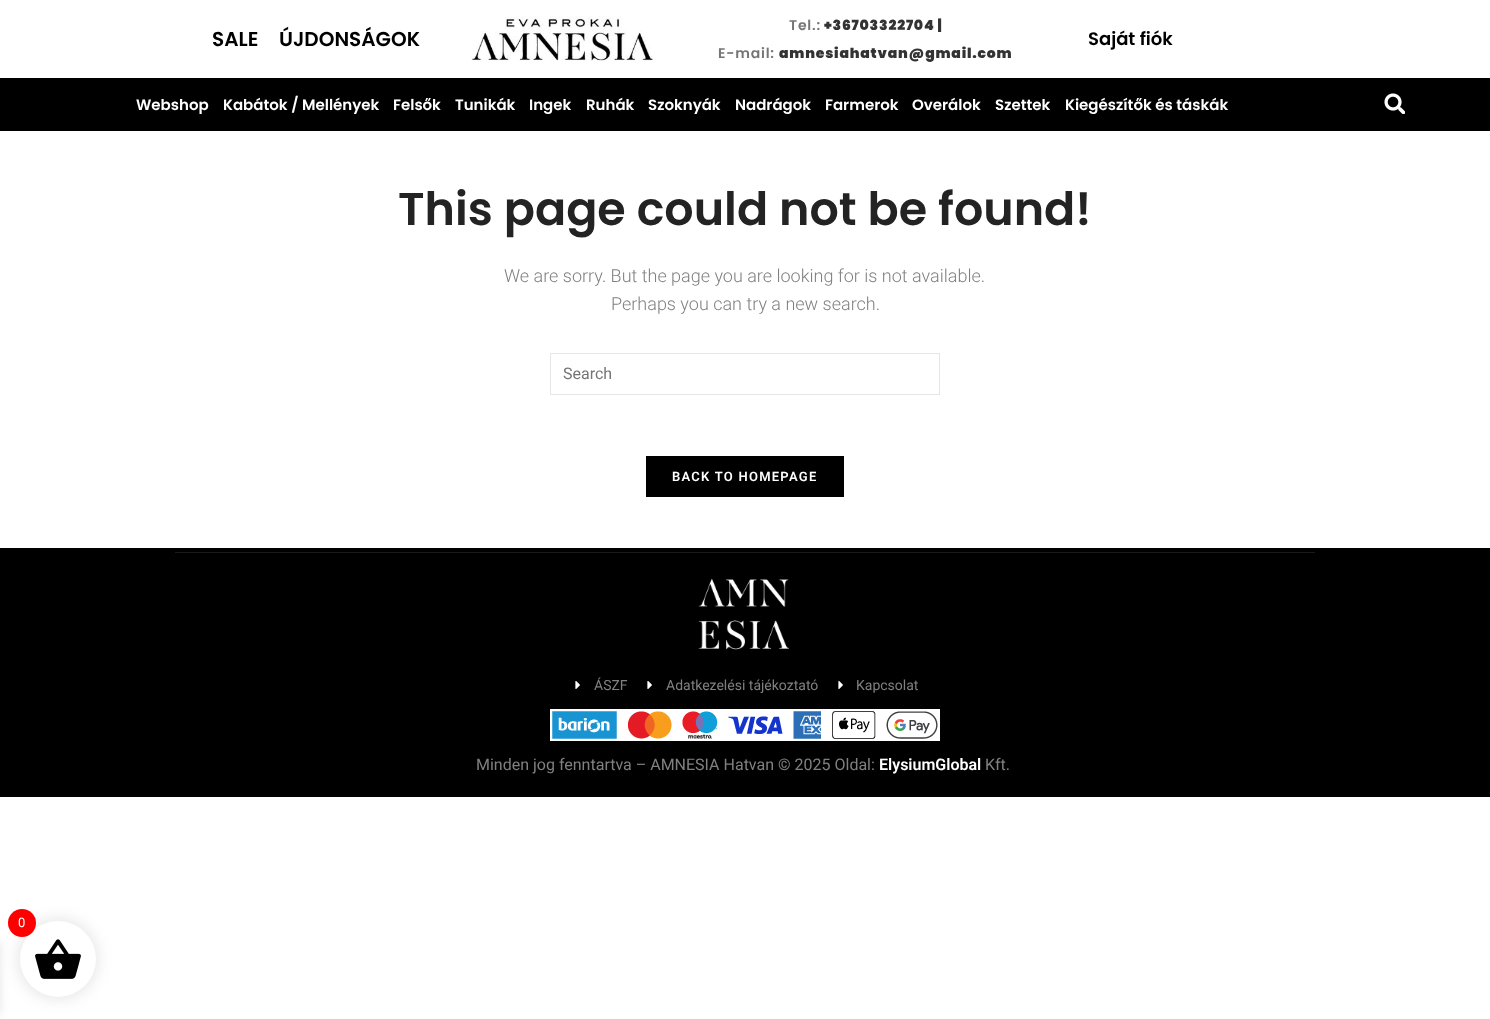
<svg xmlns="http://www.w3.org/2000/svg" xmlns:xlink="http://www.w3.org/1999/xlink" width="1490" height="1019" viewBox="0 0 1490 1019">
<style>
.cls-1{font:600 20px Poppins;fill:#000000}
.cls-2{font:600 14px Poppins;letter-spacing:0.8px;fill:#757575}
.cls-3{font:900 14px Poppins;letter-spacing:0.8px;fill:#333333}
.cls-4{font:600 18px Poppins;fill:#000000}
.cls-5{font:600 15px Poppins;fill:#ffffff}
.cls-6{font:600 46px Poppins;fill:#232323}
.cls-7{font:300 18px Roboto;fill:#808080}
.cls-8{font:16px Roboto;fill:#757575}
.cls-9{font:600 13px Roboto;letter-spacing:1.25px;fill:#ffffff}
.cls-10{font:14px Roboto;fill:#808080}
.cls-11{font:16px Roboto;fill:#808080}
.cls-12{font:600 16px Roboto;fill:#ffffff}
.cls-13{font:13px Roboto;fill:#ffffff}
</style>
<rect width="100%" height="100%" fill="#ffffff"/>
<image xlink:href="image0.png" x="471" y="16" width="183" height="45"/>
<rect fill="#000000" x="0" y="78" width="1490" height="53"/>
<image xlink:href="image1.png" x="1384" y="93" width="21" height="21"/>
<rect fill="none" stroke="#e6e6e6" x="550.5" y="353.5" width="389" height="41"/>
<rect fill="#000000" x="646" y="456" width="198" height="41"/>
<rect fill="#000000" x="0" y="548" width="1490" height="249"/>
<rect fill="#1a1a1a" x="175" y="552" width="1140" height="1"/>
<image xlink:href="image2.png" x="698" y="579" width="91" height="71"/>
<image xlink:href="image3.png" x="575" y="681" width="5" height="8"/>
<image xlink:href="image3.png" x="647" y="681" width="5" height="8"/>
<image xlink:href="image3.png" x="838" y="681" width="5" height="8"/>
<image xlink:href="image4.png" x="550" y="709" width="390" height="32"/>
<rect fill="#000000" fill-opacity="0.1" filter="blur(7.5px)" x="18" y="919" width="80" height="80" rx="40"/>
<circle fill="#ffffff" cx="58" cy="959" r="38"/>
<rect fill="#000000" fill-opacity="0.1" filter="blur(5px)" x="-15" y="942" width="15" height="72"/>
<circle fill="#ff0000" cx="22" cy="923" r="14"/>
<image xlink:href="image5.png" x="35" y="939" width="46" height="40"/>
<text class="cls-1" x="212" y="46">SALE</text>
<text class="cls-1" x="279" y="46">ÚJDONSÁGOK</text>
<text class="cls-2" x="789" y="30">Tel.:</text>
<text class="cls-3" x="824" y="30">+36703322704 |</text>
<text class="cls-2" x="718" y="58">E-mail:</text>
<text class="cls-3" x="779" y="58">amnesiahatvan@gmail.com</text>
<text class="cls-4" x="1088" y="45">Saját fiók</text>
<text class="cls-5" x="136" y="110">Webshop</text>
<text class="cls-5" x="223" y="110">Kabátok / Mellények</text>
<text class="cls-5" x="393" y="110">Felsők</text>
<text class="cls-5" x="455" y="110">Tunikák</text>
<text class="cls-5" x="529" y="110">Ingek</text>
<text class="cls-5" x="586" y="110">Ruhák</text>
<text class="cls-5" x="648" y="110">Szoknyák</text>
<text class="cls-5" x="735" y="110">Nadrágok</text>
<text class="cls-5" x="825" y="110">Farmerok</text>
<text class="cls-5" x="912" y="110">Overálok</text>
<text class="cls-5" x="995" y="110">Szettek</text>
<text class="cls-5" x="1065" y="110">Kiegészítők és táskák</text>
<text class="cls-6" x="398" y="225">This page could not be found!</text>
<text class="cls-7" x="504" y="282">We are sorry. But the page you are looking for is not available.</text>
<text class="cls-7" x="611" y="310">Perhaps you can try a new search.</text>
<text class="cls-8" x="563" y="379">Search</text>
<text class="cls-9" x="672" y="481">BACK TO HOMEPAGE</text>
<text class="cls-10" x="594" y="690">ÁSZF</text>
<text class="cls-10" x="666" y="690">Adatkezelési tájékoztató</text>
<text class="cls-10" x="856" y="690">Kapcsolat</text>
<text class="cls-11" x="476" y="770">Minden jog fenntartva – AMNESIA Hatvan © 2025 Oldal:</text>
<text class="cls-12" x="879" y="770">ElysiumGlobal</text>
<text class="cls-11" x="985" y="770">Kft.</text>
<text class="cls-13" x="18" y="927">0</text>
</svg>
